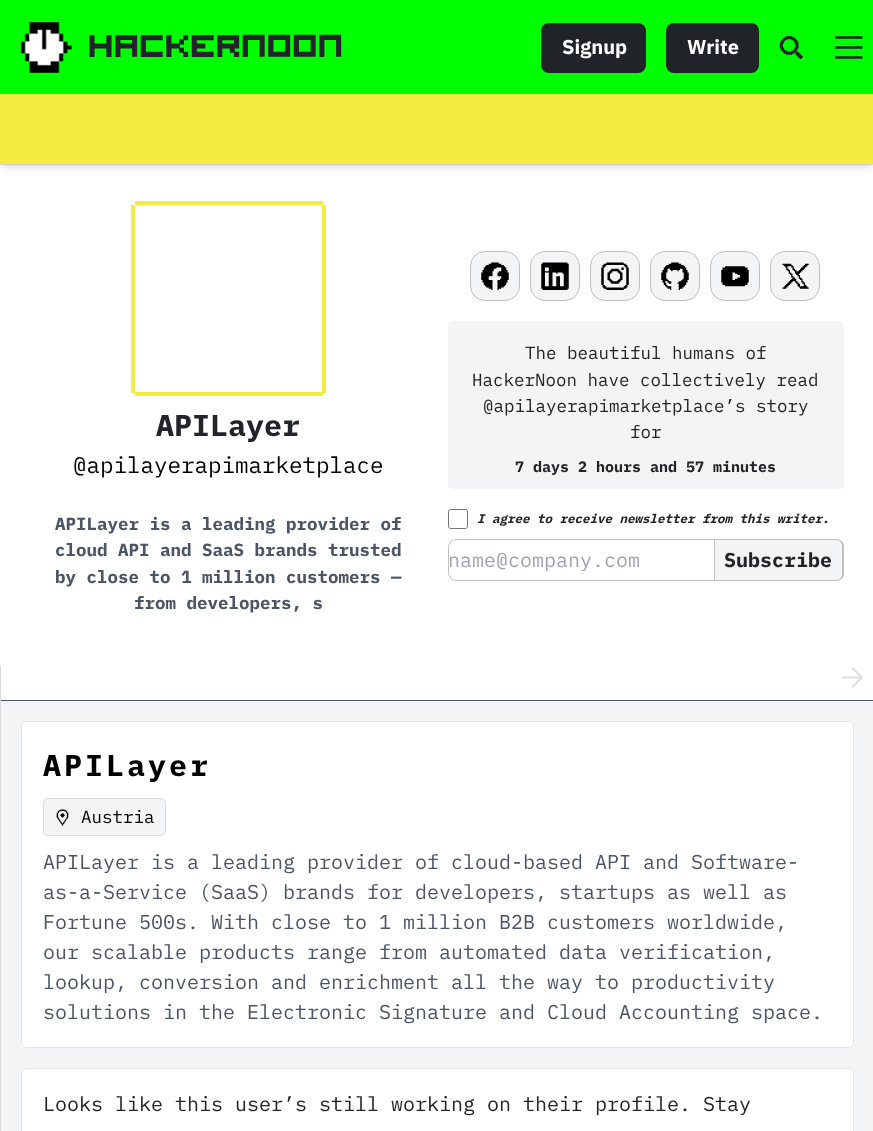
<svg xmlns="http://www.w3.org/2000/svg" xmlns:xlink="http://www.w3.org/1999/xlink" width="873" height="1131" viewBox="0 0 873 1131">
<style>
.cls-1{font:bold 30px 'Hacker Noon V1';letter-spacing:1.5px;fill:#212428}
.cls-2{font:bold 20px IBM Plex Sans;fill:#ffffff}
.cls-3{font:bold 30px IBM Plex Mono;fill:#212428}
.cls-4{font:22.5px IBM Plex Mono;fill:#000000}
.cls-5{font:bold 17.5px IBM Plex Mono;fill:#4b5563}
.cls-6{font:17.5px IBM Plex Mono;fill:#212428}
.cls-7{font:bold 15px IBM Plex Mono;fill:#212428}
.cls-8{font:italic bold 12.5px IBM Plex Mono;fill:#212428}
.cls-9{font:20px IBM Plex Mono;fill:#9ca3af}
.cls-10{font:bold 20px IBM Plex Mono;fill:#212428}
.cls-11{font:bold 30px IBM Plex Mono;letter-spacing:3px;fill:#000000}
.cls-12{font:17.5px IBM Plex Mono;fill:#000000}
.cls-13{font:20px IBM Plex Mono;fill:#4b5563}
.cls-14{font:20px IBM Plex Mono;fill:#212428}
</style>
<rect width="100%" height="100%" fill="#ffffff"/>
<rect fill="#00ff00" x="0" y="0" width="873" height="94"/>
<image xlink:href="image0.png" x="20" y="22" width="52" height="51"/>
<rect fill="#202327" x="541" y="23" width="105" height="50" rx="8"/>
<rect fill="#202327" x="666" y="23" width="93" height="50" rx="8"/>
<image xlink:href="image1.png" x="779" y="36" width="24" height="23"/>
<image xlink:href="image2.png" x="835" y="36" width="28" height="23"/>
<rect fill="#e6e6e6" x="0" y="164" width="873" height="1"/>
<rect fill="#000000" fill-opacity="0.1" filter="blur(2.5px)" x="3" y="99" width="868" height="65"/>
<rect fill="#000000" fill-opacity="0.1" filter="blur(4px)" x="1" y="100" width="872" height="68"/>
<rect fill="#f5ec42" x="0" y="94" width="873" height="70"/>
<path fill="#f5ec43" d="M131 205V393H319V392H135V205Z"/>
<path fill="#f5ec43" d="M139 392V393H326V205H322V392Z"/>
<path fill="#f5ec43" d="M135 201V205H322V389H323V201Z"/>
<path fill="#f5ec43" d="M135 392V396H323V209H322V392Z"/>
<rect fill="#f3f4f6" stroke="#c0c0c0" x="470.5" y="251.5" width="49" height="49" rx="14.5"/>
<image xlink:href="image3.png" x="481" y="262" width="28" height="28"/>
<rect fill="#f3f4f6" stroke="#c0c0c0" x="530.5" y="251.5" width="49" height="49" rx="14.5"/>
<image xlink:href="image4.png" x="541" y="262" width="28" height="28"/>
<rect fill="#f3f4f6" stroke="#c0c0c0" x="590.5" y="251.5" width="49" height="49" rx="14.5"/>
<image xlink:href="image5.png" x="601" y="262" width="28" height="28"/>
<rect fill="#f3f4f6" stroke="#c0c0c0" x="650.5" y="251.5" width="49" height="49" rx="14.5"/>
<image xlink:href="image6.png" x="661" y="262" width="28" height="28"/>
<rect fill="#f3f4f6" stroke="#c0c0c0" x="710.5" y="251.5" width="49" height="49" rx="14.5"/>
<image xlink:href="image7.png" x="721" y="266" width="28" height="21"/>
<rect fill="#f3f4f6" stroke="#c0c0c0" x="770.5" y="251.5" width="49" height="49" rx="14.5"/>
<image xlink:href="image8.png" x="782" y="263" width="27" height="26"/>
<rect fill="#f3f4f6" x="448" y="321" width="396" height="168" rx="5"/>
<rect fill="none" stroke="#767676" x="448.5" y="509.5" width="19" height="19" rx="2"/>
<path fill="none" stroke="#c0c0c0" d="M456 539.5H714.5V580.5H456C452 580.5 448.5 577 448.5 573V547C448.5 543 452 539.5 456 539.5Z"/>
<path fill="#f3f4f6" d="M715 540H837C840.5 540 843 542.5 843 546V574C843 577.5 840.5 580 837 580H715Z"/>
<path fill="#c0c0c0" fill-rule="evenodd" d="M715 539H836C840 539 844 542 844 546V574C844 578 840 581 836 581H715ZM715 540H836C840 540 842 543 842 546V574C842 577 840 580 836 580H715Z"/>
<rect fill="#f3f4f6" x="1" y="701" width="872" height="430"/>
<rect fill="#dbdcdd" x="0" y="666" width="1" height="465"/>
<rect fill="#4b5563" x="1" y="700" width="872" height="1"/>
<image xlink:href="image9.png" x="842" y="667" width="21" height="21"/>
<rect fill="#ffffff" x="21" y="721" width="833" height="327" rx="5"/>
<rect fill="none" stroke="#000000" stroke-opacity="0.1" x="21.5" y="721.5" width="832" height="326" rx="4.5"/>
<rect fill="#f3f4f6" x="43" y="798" width="123" height="38" rx="5"/>
<rect fill="none" stroke="#000000" stroke-opacity="0.1" x="43.5" y="798.5" width="122" height="37" rx="4.5"/>
<image xlink:href="image10.png" x="56" y="809" width="13" height="17"/>
<rect fill="#ffffff" x="21" y="1068" width="833" height="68" rx="5"/>
<rect fill="none" stroke="#000000" stroke-opacity="0.1" x="21.5" y="1068.5" width="832" height="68" rx="4.5"/>
<text class="cls-1" x="88" y="54">Hackernoon</text>
<text class="cls-2" x="562" y="54">Signup</text>
<text class="cls-2" x="687" y="54">Write</text>
<text class="cls-3" x="156" y="436">APILayer</text>
<text class="cls-4" x="73" y="473">@apilayerapimarketplace</text>
<text class="cls-5"><tspan x="55" y="530">APILayer is a leading provider of</tspan><tspan x="55" y="556">cloud API and SaaS brands trusted</tspan><tspan x="55" y="583">by close to 1 million customers —</tspan></text>
<text class="cls-5" x="134" y="609">from developers, s</text>
<text class="cls-6" x="525" y="359">The beautiful humans of</text>
<text class="cls-6" x="472" y="386">HackerNoon have collectively read</text>
<text class="cls-6" x="483" y="412">@apilayerapimarketplace’s story</text>
<text class="cls-6" x="630" y="438">for</text>
<text class="cls-7" x="515" y="472">7 days 2 hours and 57 minutes</text>
<text class="cls-8" x="477" y="523">I agree to receive newsletter from this writer.</text>
<text class="cls-9" x="448" y="567">name@company.com</text>
<text class="cls-10" x="724" y="567">Subscribe</text>
<text class="cls-11" x="43" y="776">APILayer</text>
<text class="cls-12" x="81" y="823">Austria</text>
<text class="cls-13"><tspan x="43" y="869">APILayer is a leading provider of cloud-based API and Software-</tspan><tspan x="43" y="899">as-a-Service (SaaS) brands for developers, startups as well as</tspan><tspan x="43" y="929">Fortune 500s. With close to 1 million B2B customers worldwide,</tspan><tspan x="43" y="959">our scalable products range from automated data verification,</tspan><tspan x="43" y="989">lookup, conversion and enrichment all the way to productivity</tspan><tspan x="43" y="1019">solutions in the Electronic Signature and Cloud Accounting space.</tspan></text>
<text class="cls-14" x="43" y="1111">Looks like this user’s still working on their profile. Stay</text>
</svg>
